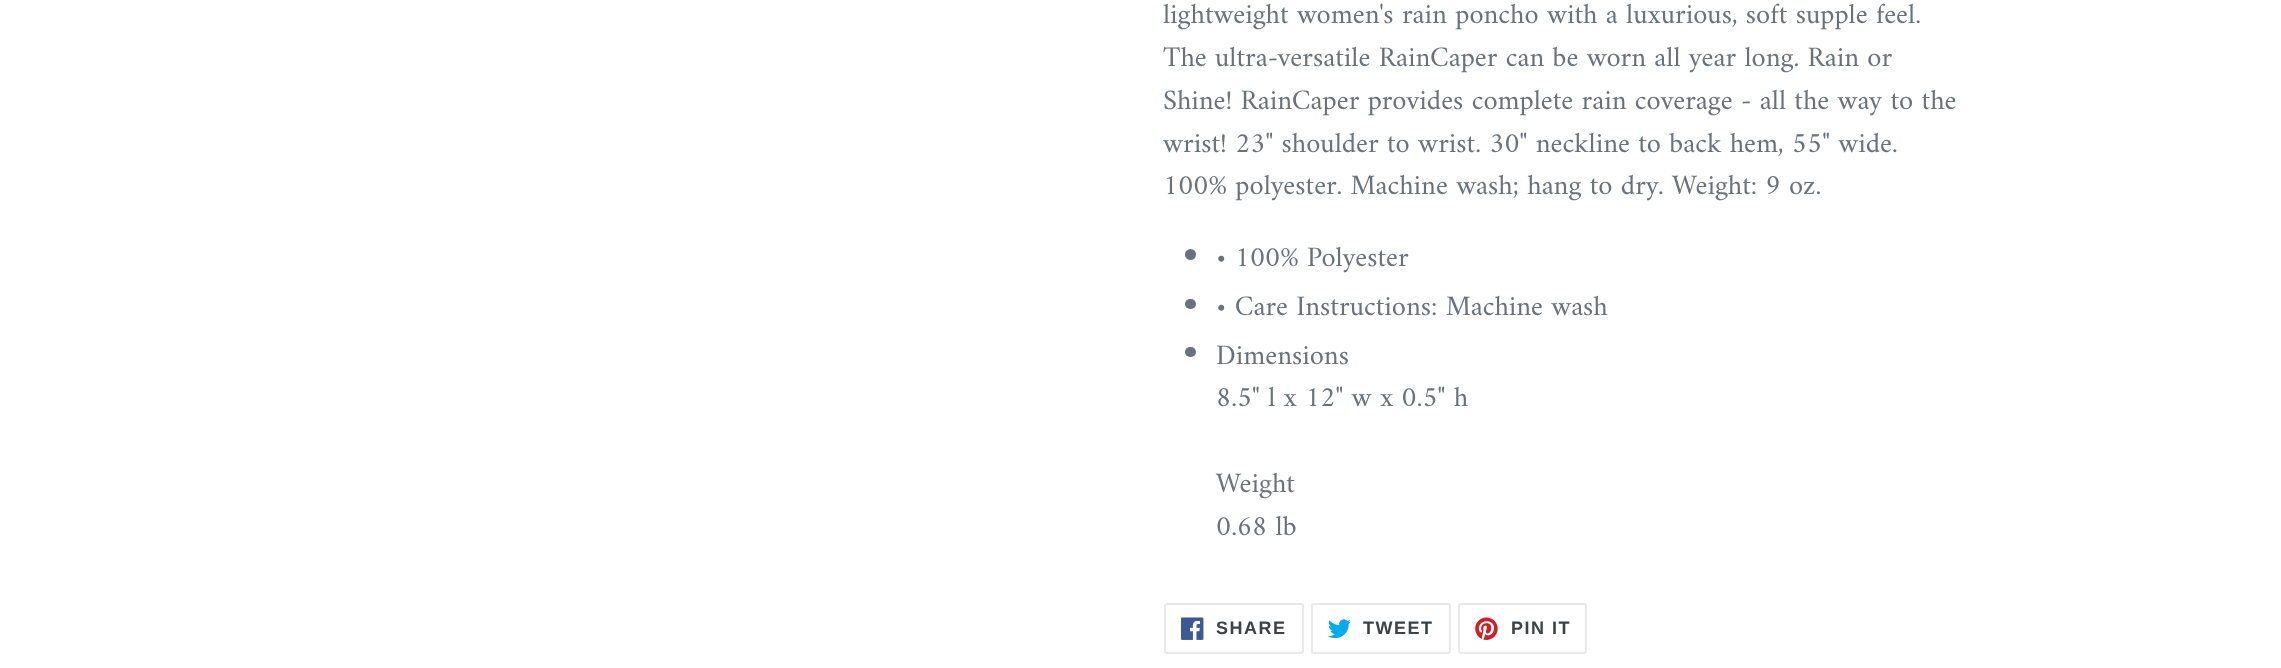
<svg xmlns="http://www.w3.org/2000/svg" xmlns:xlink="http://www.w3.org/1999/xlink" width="2281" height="668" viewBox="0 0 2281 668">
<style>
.cls-1{font:28.5px Amiri;fill:#69727b}
.cls-2{font:bold 18px Liberation Sans;letter-spacing:1.5px;fill:#3d4246}
</style>
<rect width="100%" height="100%" fill="#ffffff"/>
<circle fill="#69727b" cx="1190.5" cy="254.5" r="5.5"/>
<rect fill="#69727b" x="1185" y="299" width="11" height="10" rx="5"/>
<rect fill="#69727b" x="1185" y="347" width="11" height="10" rx="5"/>
<rect fill="none" stroke="#e8e9eb" stroke-width="2" x="1165" y="604" width="138" height="49" rx="2"/>
<image xlink:href="image0.png" x="1181" y="617" width="23" height="23"/>
<rect fill="none" stroke="#e8e9eb" stroke-width="2" x="1312" y="604" width="138" height="49" rx="2"/>
<image xlink:href="image1.png" x="1328" y="619" width="23" height="20"/>
<rect fill="none" stroke="#e8e9eb" stroke-width="2" x="1459" y="604" width="127" height="49" rx="2"/>
<image xlink:href="image2.png" x="1475" y="617" width="23" height="23"/>
<text class="cls-1"><tspan x="1163" y="23">lightweight women's rain poncho with a luxurious, soft supple feel.</tspan><tspan x="1163" y="66">The ultra-versatile RainCaper can be worn all year long. Rain or</tspan><tspan x="1163" y="109">Shine! RainCaper provides complete rain coverage - all the way to the</tspan><tspan x="1163" y="152">wrist! 23" shoulder to wrist. 30" neckline to back hem, 55" wide.</tspan><tspan x="1163" y="194">100% polyester. Machine wash; hang to dry. Weight: 9 oz.</tspan></text>
<text class="cls-1"><tspan x="1216" y="266">• 100% Polyester</tspan><tspan x="1216" y="315">• Care Instructions: Machine wash</tspan><tspan x="1216" y="364">Dimensions</tspan><tspan x="1216" y="406">8.5" l x 12" w x 0.5" h</tspan></text>
<text class="cls-1"><tspan x="1216" y="492">Weight</tspan><tspan x="1216" y="535">0.68 lb</tspan></text>
<text class="cls-2" x="1216" y="634">SHARE</text>
<text class="cls-2" x="1363" y="634">TWEET</text>
<text class="cls-2" x="1511" y="634">PIN IT</text>
</svg>
